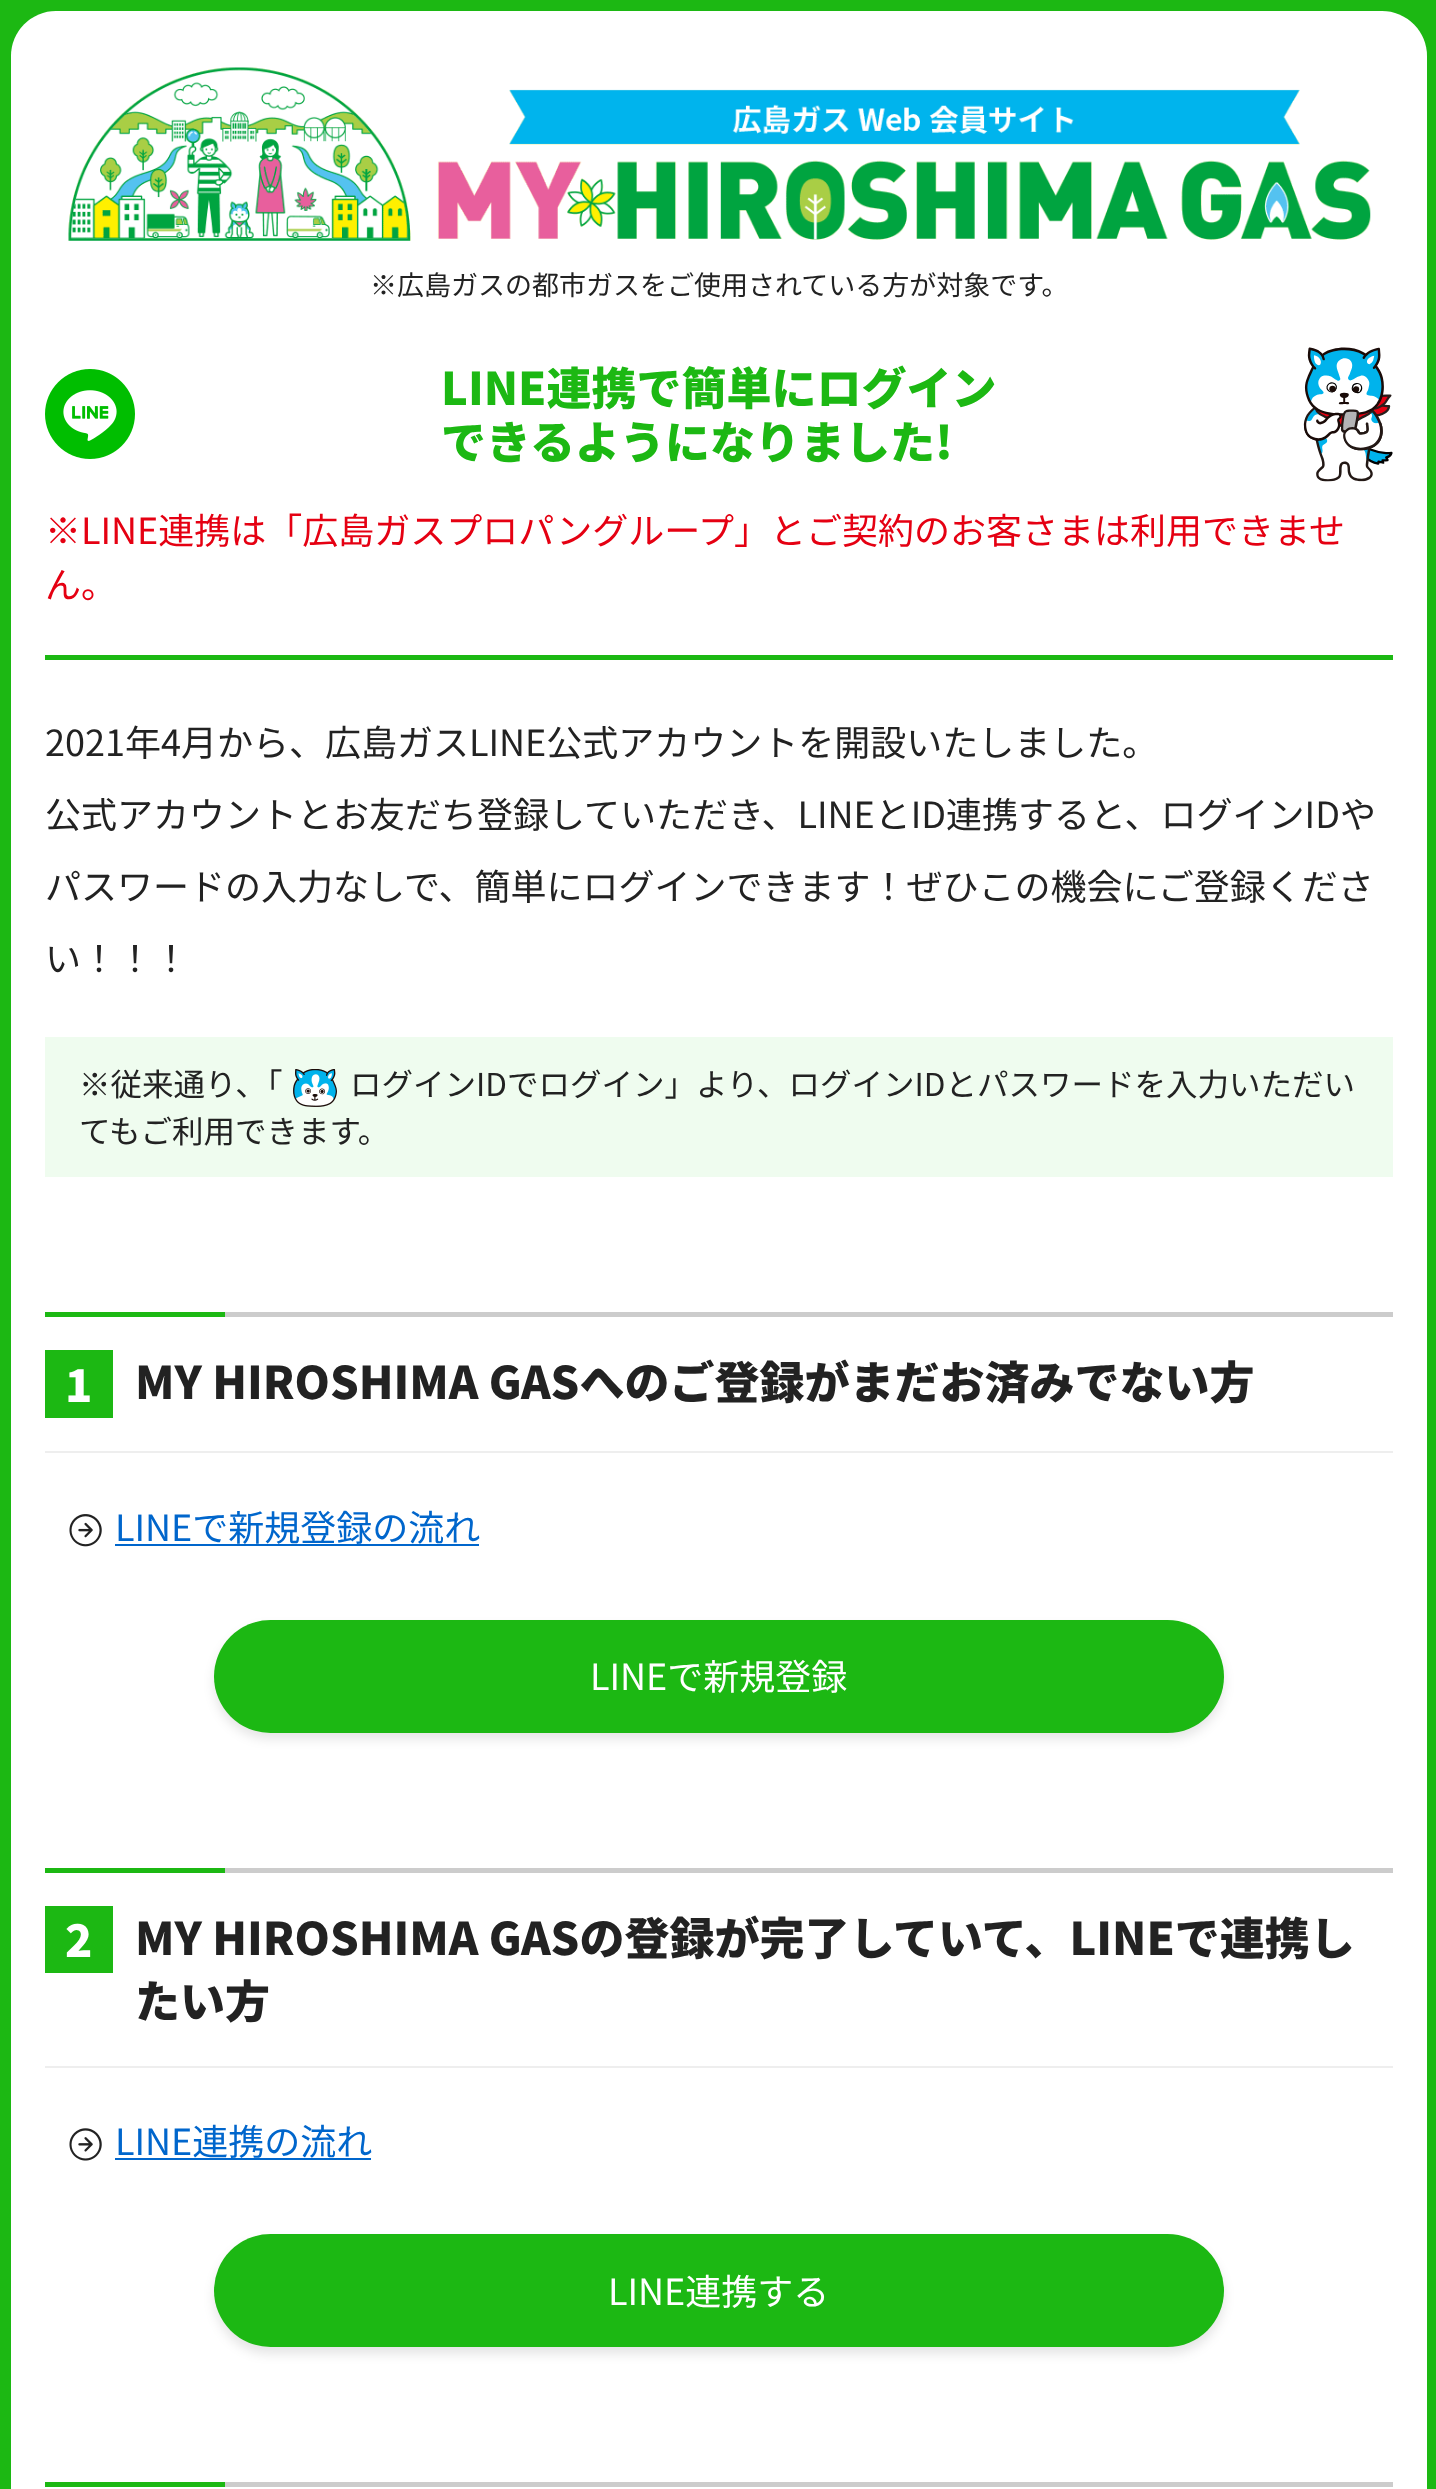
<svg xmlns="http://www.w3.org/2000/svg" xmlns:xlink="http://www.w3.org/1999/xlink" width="1436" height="2489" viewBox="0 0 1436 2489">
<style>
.cls-1{font:27px Noto Sans JP;fill:#222222}
.cls-2{font:900 45px Noto Sans JP;fill:#1cb813}
.cls-3{font:36px Noto Sans JP;fill:#e50012}
.cls-4{font:36px Noto Sans JP;fill:#222222}
.cls-5{font:31.5px Noto Sans JP;fill:#222222}
.cls-6{font:900 45px Noto Sans JP;fill:#ffffff}
.cls-7{font:900 45px Noto Sans JP;fill:#222222}
.cls-8{font:36px Noto Sans JP;fill:#0066cc}
.cls-9{font:36px Noto Sans JP;fill:#ffffff}
</style>
<rect width="100%" height="100%" fill="#1cb813"/>
<rect fill="#ffffff" x="11" y="11" width="1416" height="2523" rx="45"/>
<image xlink:href="image0.png" x="68" y="67" width="1303" height="174"/>
<image xlink:href="image1.png" x="45" y="369" width="90" height="90"/>
<image xlink:href="image2.png" x="1303" y="347" width="90" height="135"/>
<rect fill="#1cb813" x="45" y="655" width="1348" height="5"/>
<rect fill="#effcef" x="45" y="1037" width="1348" height="140"/>
<rect fill="#cccccc" x="225" y="1312" width="1168" height="5"/>
<rect fill="#eeeeee" x="45" y="1451" width="1348" height="2"/>
<rect fill="#1cb813" x="45" y="1312" width="180" height="5"/>
<rect fill="#1cb813" x="45" y="1350" width="68" height="68"/>
<image xlink:href="image4.png" x="69" y="1514" width="33" height="33"/>
<rect fill="#0066cc" x="115" y="1544" width="364" height="2"/>
<rect fill="#000000" fill-opacity="0.1" filter="blur(5.5px)" x="214" y="1627" width="1010" height="112" rx="56"/>
<rect fill="#1cb813" x="214" y="1620" width="1010" height="113" rx="56.5"/>
<rect fill="#cccccc" x="225" y="1868" width="1168" height="5"/>
<rect fill="#eeeeee" x="45" y="2066" width="1348" height="2"/>
<rect fill="#1cb813" x="45" y="1868" width="180" height="5"/>
<rect fill="#1cb813" x="45" y="1906" width="68" height="67"/>
<image xlink:href="image5.png" x="69" y="2128" width="33" height="33"/>
<rect fill="#0066cc" x="115" y="2158" width="256" height="2"/>
<rect fill="#000000" fill-opacity="0.1" filter="blur(5.5px)" x="214" y="2241" width="1010" height="113" rx="56.5"/>
<rect fill="#1cb813" x="214" y="2234" width="1010" height="113" rx="56.5"/>
<rect fill="#cccccc" x="225" y="2482" width="1168" height="5"/>
<rect fill="#1cb813" x="45" y="2482" width="180" height="5"/>
<text class="cls-1" x="370" y="295">※広島ガスの都市ガスをご使用されている方が対象です。</text>
<text class="cls-2"><tspan x="441" y="405">LINE連携で簡単にログイン</tspan><tspan x="441" y="459">できるようになりました!</tspan></text>
<text class="cls-3"><tspan x="45" y="544">※LINE連携は「広島ガスプロパングループ」とご契約のお客さまは利用できませ</tspan><tspan x="45" y="598">ん。</tspan></text>
<text class="cls-4" x="45" y="756">2021年4月から、広島ガスLINE公式アカウントを開設いたしました。</text>
<text class="cls-4" x="45" y="828">公式アカウントとお友だち登録していただき、LINEとID連携すると、ログインIDや</text>
<text class="cls-4" x="45" y="900">パスワードの入力なしで、簡単にログインできます！ぜひこの機会にご登録くださ</text>
<text class="cls-4" x="45" y="972">い！！！</text>
<text class="cls-5" x="79" y="1096">※従来通り、「</text>
<image xlink:href="image3.png" x="293" y="1069" width="44" height="38"/>
<text class="cls-5" x="350" y="1096">ログインIDでログイン」より、ログインIDとパスワードを⼊⼒いただい</text>
<text class="cls-5" x="79" y="1143">てもご利⽤できます。</text>
<text class="cls-6" x="65" y="1402">1</text>
<text class="cls-7" x="135" y="1399">MY HIROSHIMA GASへのご登録がまだお済みでない方</text>
<text class="cls-8" x="115" y="1541">LINEで新規登録の流れ</text>
<text class="cls-9" x="590" y="1690">LINEで新規登録</text>
<text class="cls-6" x="65" y="1957">2</text>
<text class="cls-7"><tspan x="135" y="1955">MY HIROSHIMA GASの登録が完了していて、LINEで連携し</tspan><tspan x="135" y="2018">たい方</tspan></text>
<text class="cls-8" x="115" y="2155">LINE連携の流れ</text>
<text class="cls-9" x="608" y="2305">LINE連携する</text>
</svg>
